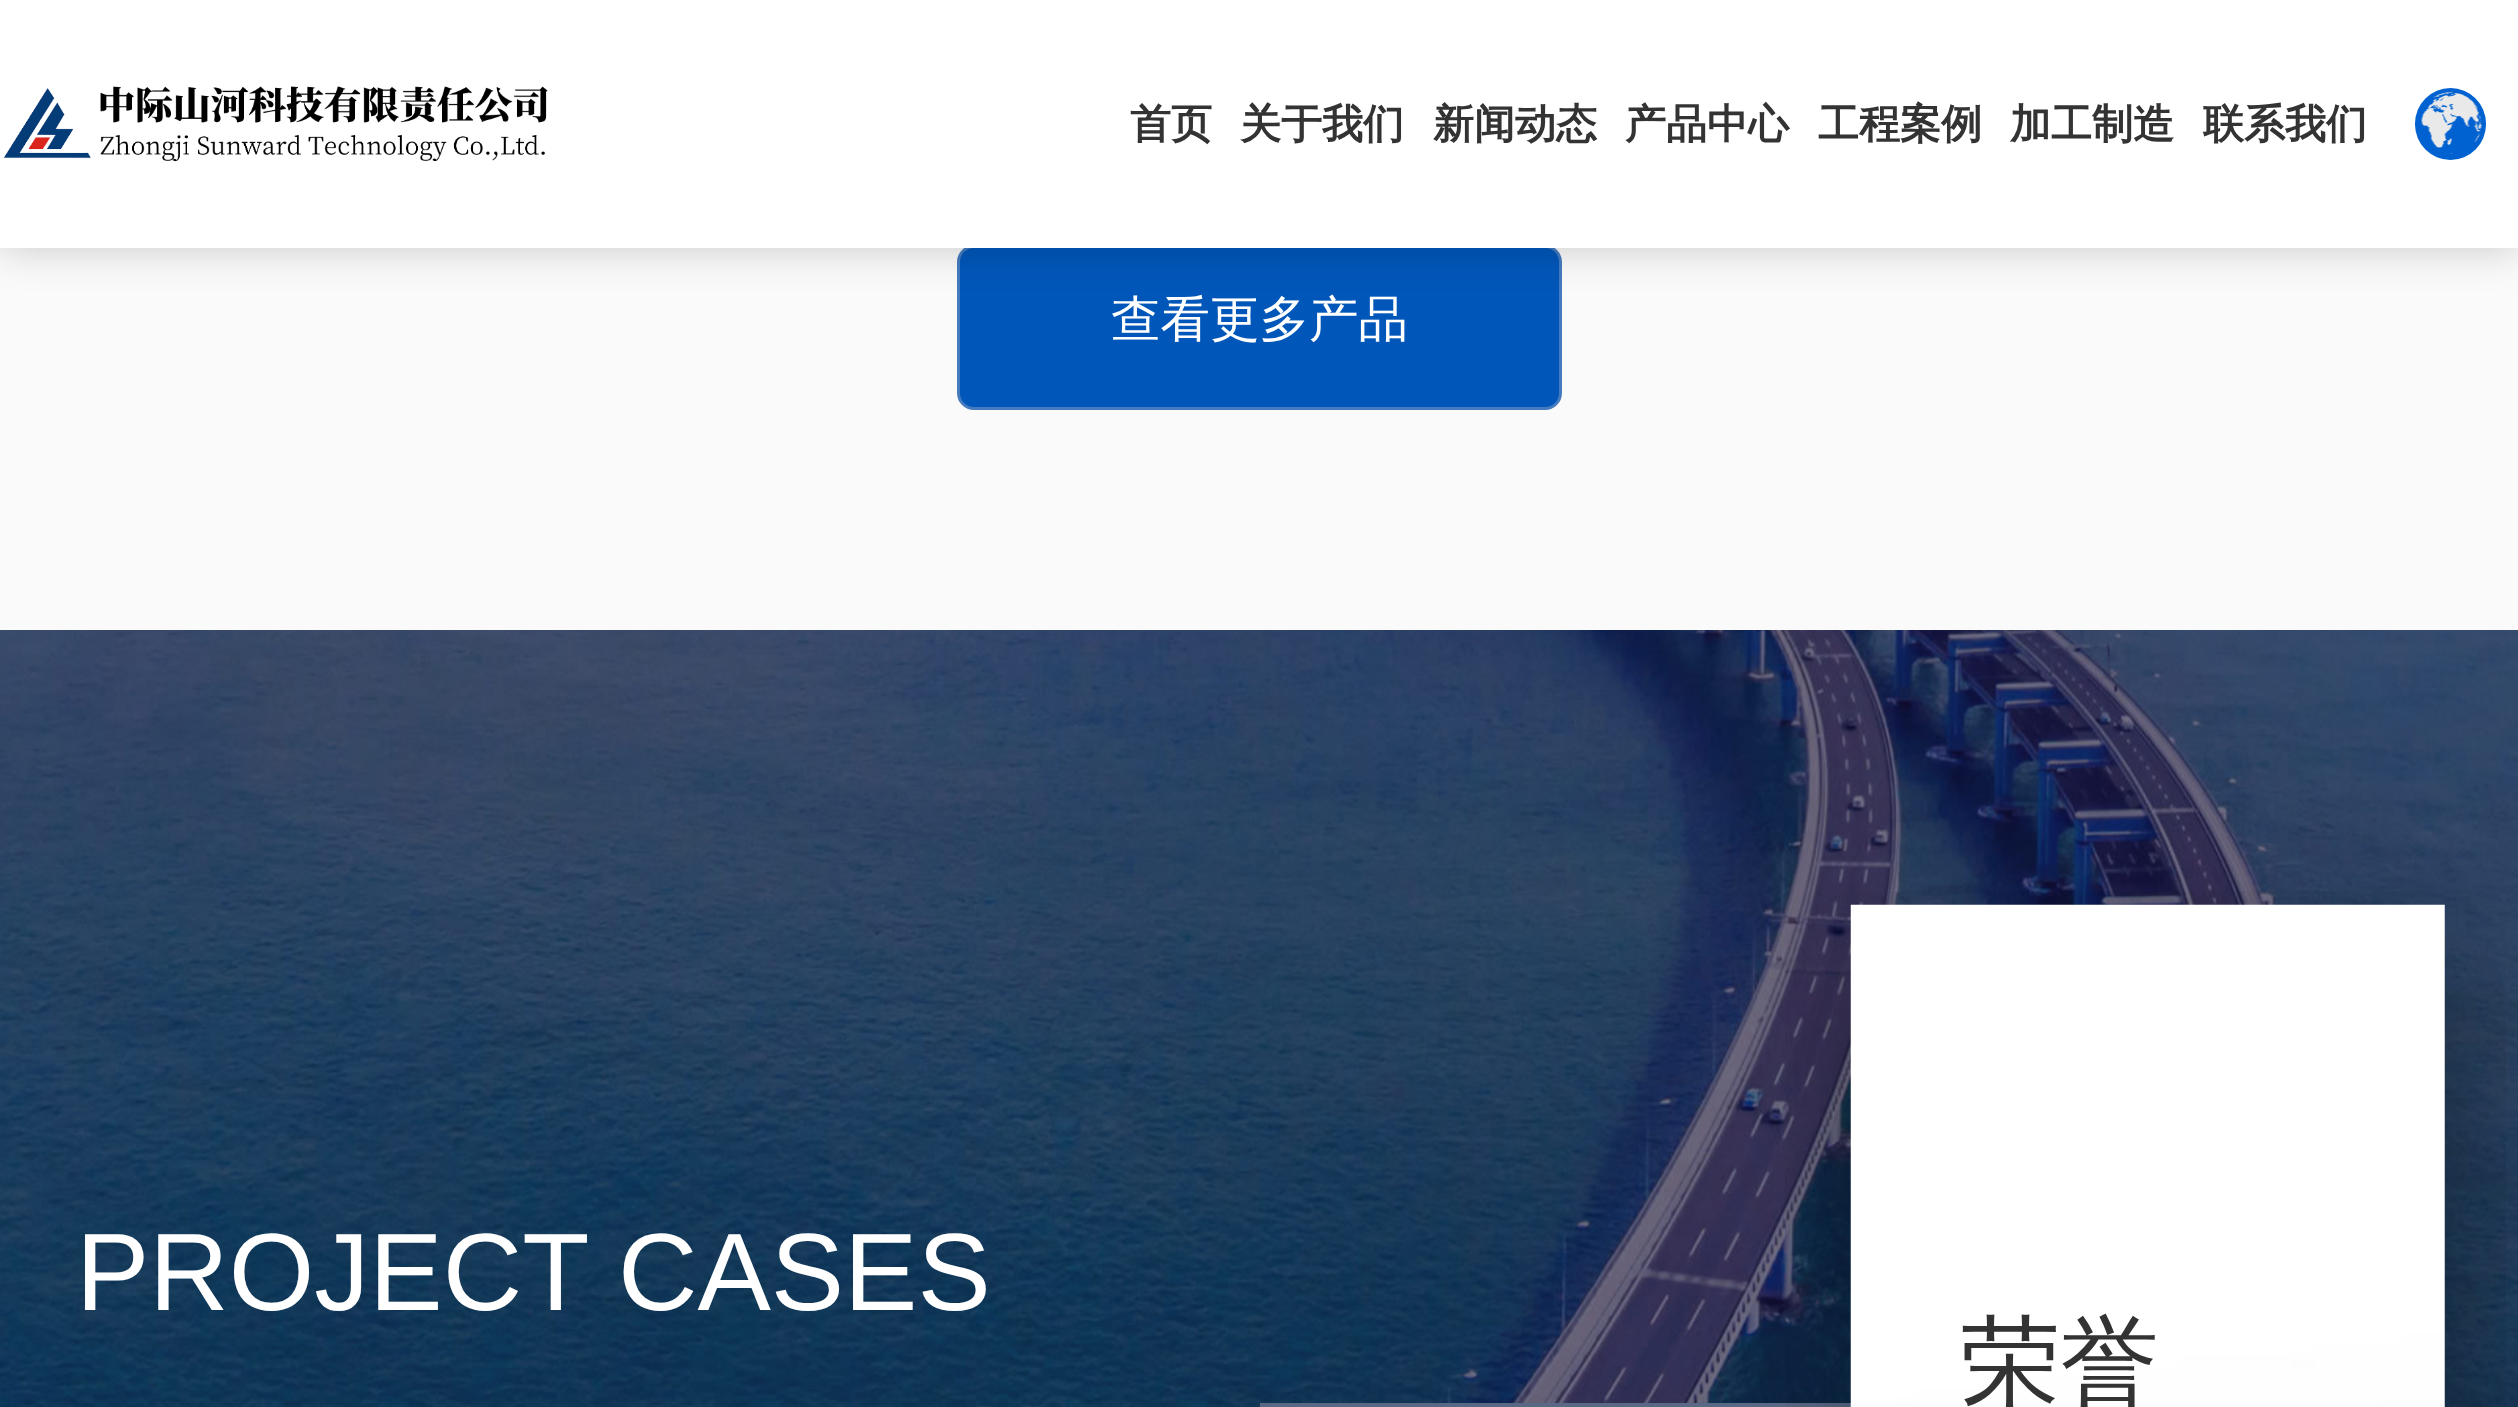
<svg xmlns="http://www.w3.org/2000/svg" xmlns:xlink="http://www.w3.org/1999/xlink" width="2518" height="1407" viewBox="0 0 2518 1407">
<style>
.cls-1{font:bold 41px WenQuanYi Zen Hei;fill:#333333}
.cls-2{font:500 49.5px WenQuanYi Zen Hei;fill:#ffffff}
.cls-3{font:110px Liberation Sans;fill:#ffffff}
.cls-4{font:500 99px WenQuanYi Zen Hei;fill:#333333}
</style>
<defs>
<linearGradient id="g1" gradientUnits="userSpaceOnUse" x1="1555" y1="1403" x2="1555" y2="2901"><stop offset="0" stop-color="#596885"/><stop offset="1" stop-color="#8692a9"/></linearGradient>
</defs>
<rect width="100%" height="100%" fill="#fafafa"/>
<rect fill="#0057b9" stroke="#447bbf" stroke-width="3" x="958.5" y="246.5" width="602" height="162" rx="15.5"/>
<rect fill="#000000" fill-opacity="0.2" filter="blur(20.5px)" x="0" y="0" width="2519" height="248"/>
<rect fill="#ffffff" x="0" y="0" width="2518" height="248"/>
<image xlink:href="image0.png" x="3" y="86" width="545" height="76"/>
<rect fill="#0061d1" x="2415" y="88" width="71" height="72" rx="35.5"/>
<image xlink:href="image1.png" x="2421" y="92" width="61" height="62"/>
<image xlink:href="image2.png" x="0" y="630" width="2518" height="777"/>
<rect fill="url(#g1)" x="1260" y="1403" width="591" height="4"/>
<image xlink:href="image3.png" x="1785" y="891" width="721" height="516"/>
<text class="cls-1" x="1130" y="138">首页</text>
<text class="cls-1" x="1240" y="138">关于我们</text>
<text class="cls-1" x="1433" y="138">新闻动态</text>
<text class="cls-1" x="1625" y="138">产品中心</text>
<text class="cls-1" x="1818" y="138">工程案例</text>
<text class="cls-1" x="2010" y="138">加工制造</text>
<text class="cls-1" x="2203" y="138">联系我们</text>
<text class="cls-2" x="1111" y="336">查看更多产品</text>
<text class="cls-3" x="76" y="1310">PROJECT CASES</text>
<text class="cls-4" x="1961" y="1396">荣誉</text>
</svg>
